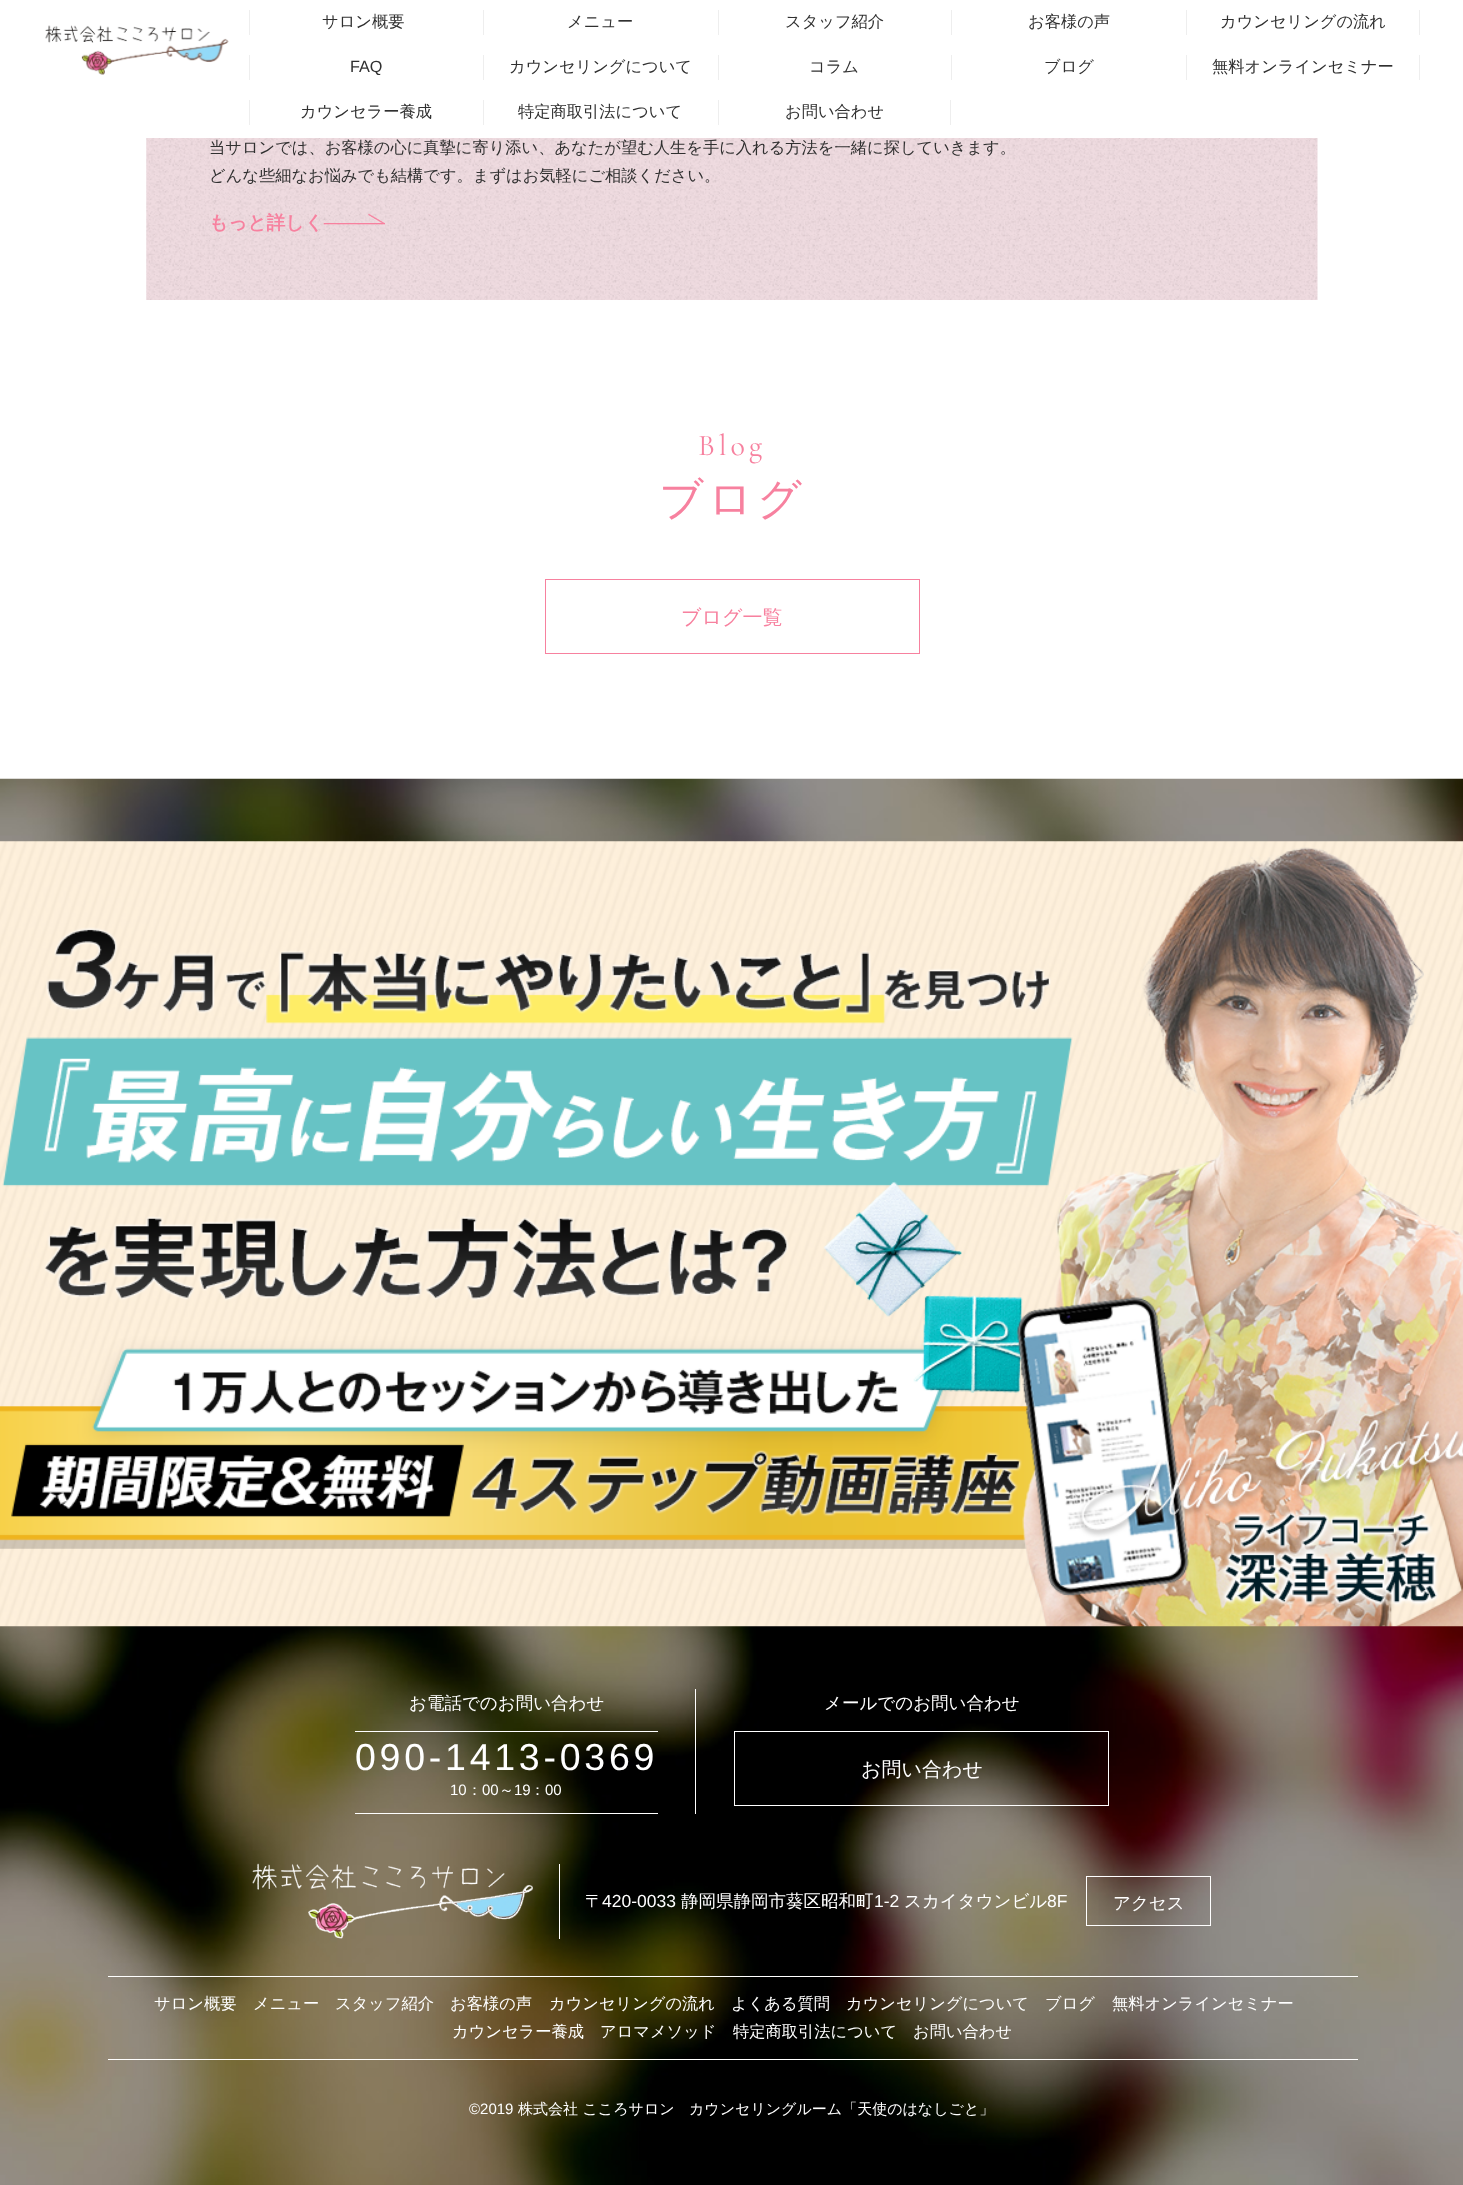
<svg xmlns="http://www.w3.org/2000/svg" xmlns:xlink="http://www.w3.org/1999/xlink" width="1463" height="2185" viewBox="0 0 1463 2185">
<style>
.cls-1{font:500 16.25px WenQuanYi Zen Hei;fill:#303030}
.cls-2{font:16.25px Liberation Sans;fill:#303030}
.cls-3{font:bold 18.75px WenQuanYi Zen Hei;fill:#f7819f}
.cls-4{font:300 30px Cormorant Garamond;letter-spacing:4px;fill:#f7819f}
.cls-5{font:500 44px WenQuanYi Zen Hei;letter-spacing:4px;fill:#f7819f}
.cls-6{font:500 20px WenQuanYi Zen Hei;fill:#f7819f}
.cls-7{font:500 17.5px WenQuanYi Zen Hei;fill:#ffffff}
.cls-8{font:37.5px Liberation Sans;letter-spacing:3.75px;fill:#ffffff}
.cls-9{font:15px Liberation Sans;fill:#ffffff}
.cls-10{font:500 15px WenQuanYi Zen Hei;fill:#ffffff}
.cls-11{font:500 20px WenQuanYi Zen Hei;fill:#ffffff}
.cls-12{font:17.5px Liberation Sans;fill:#ffffff}
.cls-13{font:500 16.25px WenQuanYi Zen Hei;fill:#ffffff}
</style>
<rect width="100%" height="100%" fill="#ffffff"/>
<image xlink:href="image0.png" x="45" y="25" width="184" height="50"/>
<rect fill="#eeeeee" x="249" y="10" width="1" height="25"/>
<rect fill="#eeeeee" x="483" y="10" width="1" height="25"/>
<rect fill="#eeeeee" x="718" y="10" width="1" height="25"/>
<rect fill="#eeeeee" x="951" y="10" width="1" height="25"/>
<rect fill="#eeeeee" x="1186" y="10" width="1" height="25"/>
<rect fill="#eeeeee" x="1419" y="10" width="1" height="25"/>
<rect fill="#eeeeee" x="249" y="55" width="1" height="25"/>
<rect fill="#eeeeee" x="483" y="55" width="1" height="25"/>
<rect fill="#eeeeee" x="718" y="55" width="1" height="25"/>
<rect fill="#eeeeee" x="951" y="55" width="1" height="25"/>
<rect fill="#eeeeee" x="1186" y="55" width="1" height="25"/>
<rect fill="#eeeeee" x="1419" y="55" width="1" height="25"/>
<rect fill="#eeeeee" x="249" y="100" width="1" height="25"/>
<rect fill="#eeeeee" x="483" y="100" width="1" height="25"/>
<rect fill="#eeeeee" x="718" y="100" width="1" height="25"/>
<rect fill="#eeeeee" x="950" y="100" width="1" height="25"/>
<image xlink:href="image1.png" x="146" y="138" width="1172" height="162"/>
<image xlink:href="image2.png" x="323" y="213" width="62" height="12"/>
<rect fill="none" stroke="#f7819f" x="545.5" y="579.5" width="374" height="74"/>
<image xlink:href="image3.png" x="0" y="778" width="1463" height="1407"/>
<image xlink:href="image4.png" x="0" y="841" width="1463" height="786"/>
<rect fill="#ffffff" x="695" y="1689" width="1" height="125"/>
<rect fill="#ffffff" x="355" y="1731" width="303" height="1"/>
<rect fill="#ffffff" x="355" y="1813" width="303" height="1"/>
<rect fill="none" stroke="#ffffff" x="734.5" y="1731.5" width="374" height="74"/>
<rect fill="#ffffff" x="559" y="1864" width="1" height="75"/>
<image xlink:href="image5.png" x="252" y="1863" width="281" height="76"/>
<rect fill="none" stroke="#ffffff" x="1086.5" y="1876.5" width="124" height="49"/>
<rect fill="#ffffff" x="108" y="1976" width="1250" height="1"/>
<rect fill="#ffffff" x="108" y="2059" width="1250" height="1"/>
<text class="cls-1" x="322" y="27">サロン概要</text>
<text class="cls-1" x="567" y="27">メニュー</text>
<text class="cls-1" x="785" y="27">スタッフ紹介</text>
<text class="cls-1" x="1028" y="27">お客様の声</text>
<text class="cls-1" x="1220" y="27">カウンセリングの流れ</text>
<text class="cls-2" x="350" y="72">FAQ</text>
<text class="cls-1" x="509" y="72">カウンセリングについて</text>
<text class="cls-1" x="809" y="72">コラム</text>
<text class="cls-1" x="1044" y="72">ブログ</text>
<text class="cls-1" x="1212" y="72">無料オンラインセミナー</text>
<text class="cls-1" x="300" y="117">カウンセラー養成</text>
<text class="cls-1" x="518" y="117">特定商取引法について</text>
<text class="cls-1" x="785" y="117">お問い合わせ</text>
<text class="cls-1"><tspan x="209" y="153">当サロンでは、お客様の心に真摯に寄り添い、あなたが望む人生を手に入れる方法を一緒に探していきます。</tspan><tspan x="209" y="181">どんな些細なお悩みでも結構です。まずはお気軽にご相談ください。</tspan></text>
<text class="cls-3" x="209" y="229">もっと詳しく</text>
<text class="cls-4" x="698" y="455">Blog</text>
<text class="cls-5" x="659" y="514">ブログ</text>
<text class="cls-6" x="681" y="624">ブログ一覧</text>
<text class="cls-7" x="409" y="1709">お電話でのお問い合わせ</text>
<text class="cls-8" x="355" y="1770">090-1413-0369</text>
<text class="cls-9" x="450" y="1795">10</text>
<text class="cls-10" x="467" y="1795">：</text>
<text class="cls-9" x="482" y="1795">00</text>
<text class="cls-10" x="499" y="1795">～</text>
<text class="cls-9" x="514" y="1795">19</text>
<text class="cls-10" x="530" y="1795">：</text>
<text class="cls-9" x="545" y="1795">00</text>
<text class="cls-7" x="824" y="1709">メールでのお問い合わせ</text>
<text class="cls-11" x="861" y="1776">お問い合わせ</text>
<text class="cls-7" x="585" y="1907">〒</text>
<text class="cls-12" x="602" y="1907">420-0033</text>
<text class="cls-7" x="681" y="1907">静岡県静岡市葵区昭和町</text>
<text class="cls-12" x="874" y="1907">1-2</text>
<text class="cls-7" x="904" y="1907">スカイタウンビル</text>
<text class="cls-12" x="1047" y="1907">8F</text>
<text class="cls-7" x="1113" y="1909">アクセス</text>
<text class="cls-13" x="154" y="2009">サロン概要</text>
<text class="cls-13" x="253" y="2009">メニュー</text>
<text class="cls-13" x="335" y="2009">スタッフ紹介</text>
<text class="cls-13" x="450" y="2009">お客様の声</text>
<text class="cls-13" x="549" y="2009">カウンセリングの流れ</text>
<text class="cls-13" x="731" y="2009">よくある質問</text>
<text class="cls-13" x="846" y="2009">カウンセリングについて</text>
<text class="cls-13" x="1045" y="2009">ブログ</text>
<text class="cls-13" x="1112" y="2009">無料オンラインセミナー</text>
<text class="cls-13" x="452" y="2037">カウンセラー養成</text>
<text class="cls-13" x="600" y="2037">アロマメソッド</text>
<text class="cls-13" x="733" y="2037">特定商取引法について</text>
<text class="cls-13" x="913" y="2037">お問い合わせ</text>
<text class="cls-9" x="469" y="2114">©2019</text>
<text class="cls-10" x="518" y="2114">株式会社 こころサロン</text>
<text class="cls-10" x="689" y="2114">カウンセリングルーム「天使のはなしごと」</text>
</svg>
